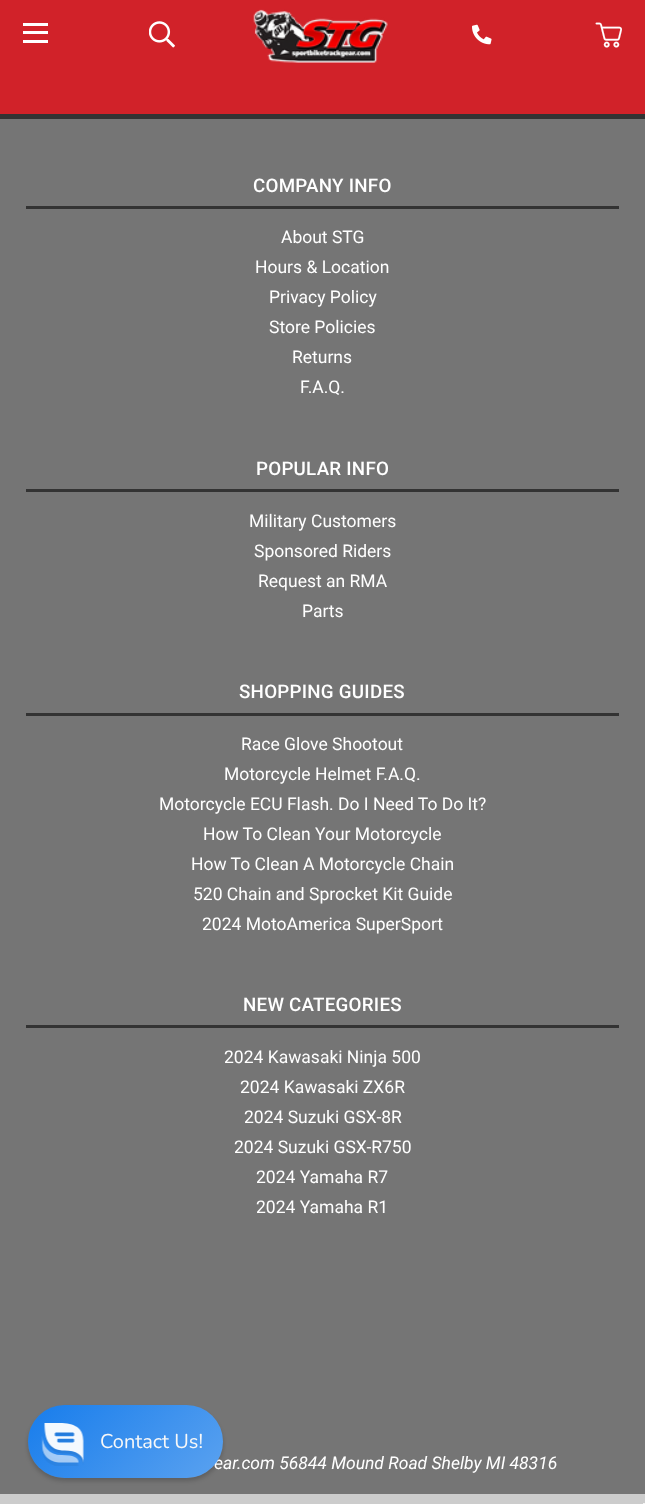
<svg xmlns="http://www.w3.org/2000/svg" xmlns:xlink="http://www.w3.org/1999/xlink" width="645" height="1504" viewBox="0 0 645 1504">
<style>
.cls-1{font:500 18.75px Roboto;letter-spacing:0.25px;fill:#ffffff}
.cls-2{font:17.5px Roboto;fill:#ffffff}
.cls-3{font:italic 17.5px Roboto;fill:#ffffff}
.cls-4{font:20px Nunito;fill:#f8f8f8}
</style>
<defs>
<clipPath id="clip1"><path d="M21 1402H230V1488H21ZM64.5 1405H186.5C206.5 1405 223 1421.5 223 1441.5C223 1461.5 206.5 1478 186.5 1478H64.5C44.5 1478 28 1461.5 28 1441.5C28 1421.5 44.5 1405 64.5 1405Z" clip-rule="evenodd"/></clipPath>
<linearGradient id="g1" gradientUnits="userSpaceOnUse" x1="58" y1="1374" x2="192" y2="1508"><stop offset="0" stop-color="#127df2" stop-opacity="0.95"/><stop offset="1" stop-color="#59a4f6" stop-opacity="0.95"/></linearGradient>
</defs>
<rect width="100%" height="100%" fill="#d12229"/>
<rect fill="#ffffff" x="23" y="31" width="25" height="3"/>
<rect fill="#ffffff" x="23" y="23" width="25" height="3"/>
<rect fill="#ffffff" x="23" y="40" width="25" height="3"/>
<image xlink:href="image0.png" x="149" y="21" width="26" height="27"/>
<image xlink:href="image1.png" x="253" y="9" width="135" height="54"/>
<image xlink:href="image2.png" x="472" y="24" width="20" height="21"/>
<image xlink:href="image3.png" x="595" y="22" width="27" height="26"/>
<rect fill="#757575" x="0" y="119" width="645" height="1375"/>
<g clip-path="url(#clip1)">
<rect fill="#000000" fill-opacity="0.19" filter="blur(2px)" x="28" y="1409" width="195" height="72" rx="36"/>
</g>
<rect fill="#333333" x="0" y="114" width="645" height="5"/>
<rect fill="#333333" x="26" y="206" width="593" height="3"/>
<rect fill="#333333" x="26" y="489" width="593" height="3"/>
<rect fill="#333333" x="26" y="713" width="593" height="3"/>
<rect fill="#333333" x="26" y="1025" width="593" height="3"/>
<rect fill="#cccccc" x="0" y="1494" width="645" height="10"/>
<rect fill="#f5f5f5" x="643" y="1503" width="2" height="1"/>
<text class="cls-1" x="253" y="192">COMPANY INFO</text>
<text class="cls-2" x="281" y="243">About STG</text>
<text class="cls-2" x="255" y="273">Hours &amp; Location</text>
<text class="cls-2"><tspan x="269" y="303">Privacy Policy</tspan><tspan x="269" y="333">Store Policies</tspan></text>
<text class="cls-2" x="292" y="363">Returns</text>
<text class="cls-2" x="300" y="393">F.A.Q.</text>
<text class="cls-1" x="256" y="475">POPULAR INFO</text>
<text class="cls-2" x="249" y="527">Military Customers</text>
<text class="cls-2" x="254" y="557">Sponsored Riders</text>
<text class="cls-2" x="258" y="587">Request an RMA</text>
<text class="cls-2" x="302" y="617">Parts</text>
<text class="cls-1" x="239" y="698">SHOPPING GUIDES</text>
<text class="cls-2" x="241" y="750">Race Glove Shootout</text>
<text class="cls-2" x="224" y="780">Motorcycle Helmet F.A.Q.</text>
<text class="cls-2" x="159" y="810">Motorcycle ECU Flash. Do I Need To Do It?</text>
<text class="cls-2" x="203" y="840">How To Clean Your Motorcycle</text>
<text class="cls-2" x="191" y="870">How To Clean A Motorcycle Chain</text>
<text class="cls-2" x="193" y="900">520 Chain and Sprocket Kit Guide</text>
<text class="cls-2" x="202" y="930">2024 MotoAmerica SuperSport</text>
<text class="cls-1" x="243" y="1011">NEW CATEGORIES</text>
<text class="cls-2" x="224" y="1063">2024 Kawasaki Ninja 500</text>
<text class="cls-2" x="240" y="1093">2024 Kawasaki ZX6R</text>
<text class="cls-2" x="244" y="1123">2024 Suzuki GSX-8R</text>
<text class="cls-2" x="234" y="1153">2024 Suzuki GSX-R750</text>
<text class="cls-2"><tspan x="256" y="1183">2024 Yamaha R7</tspan><tspan x="256" y="1213">2024 Yamaha R1</tspan></text>
<text class="cls-3" x="214" y="1469">ear.com 56844 Mound Road Shelby MI 48316</text>
<rect fill="url(#g1)" x="28" y="1405" width="195" height="73" rx="36.5"/>
<text class="cls-4" x="100" y="1448">Contact Us!</text>
<image xlink:href="image4.png" x="41" y="1423" width="43" height="43"/>
</svg>
